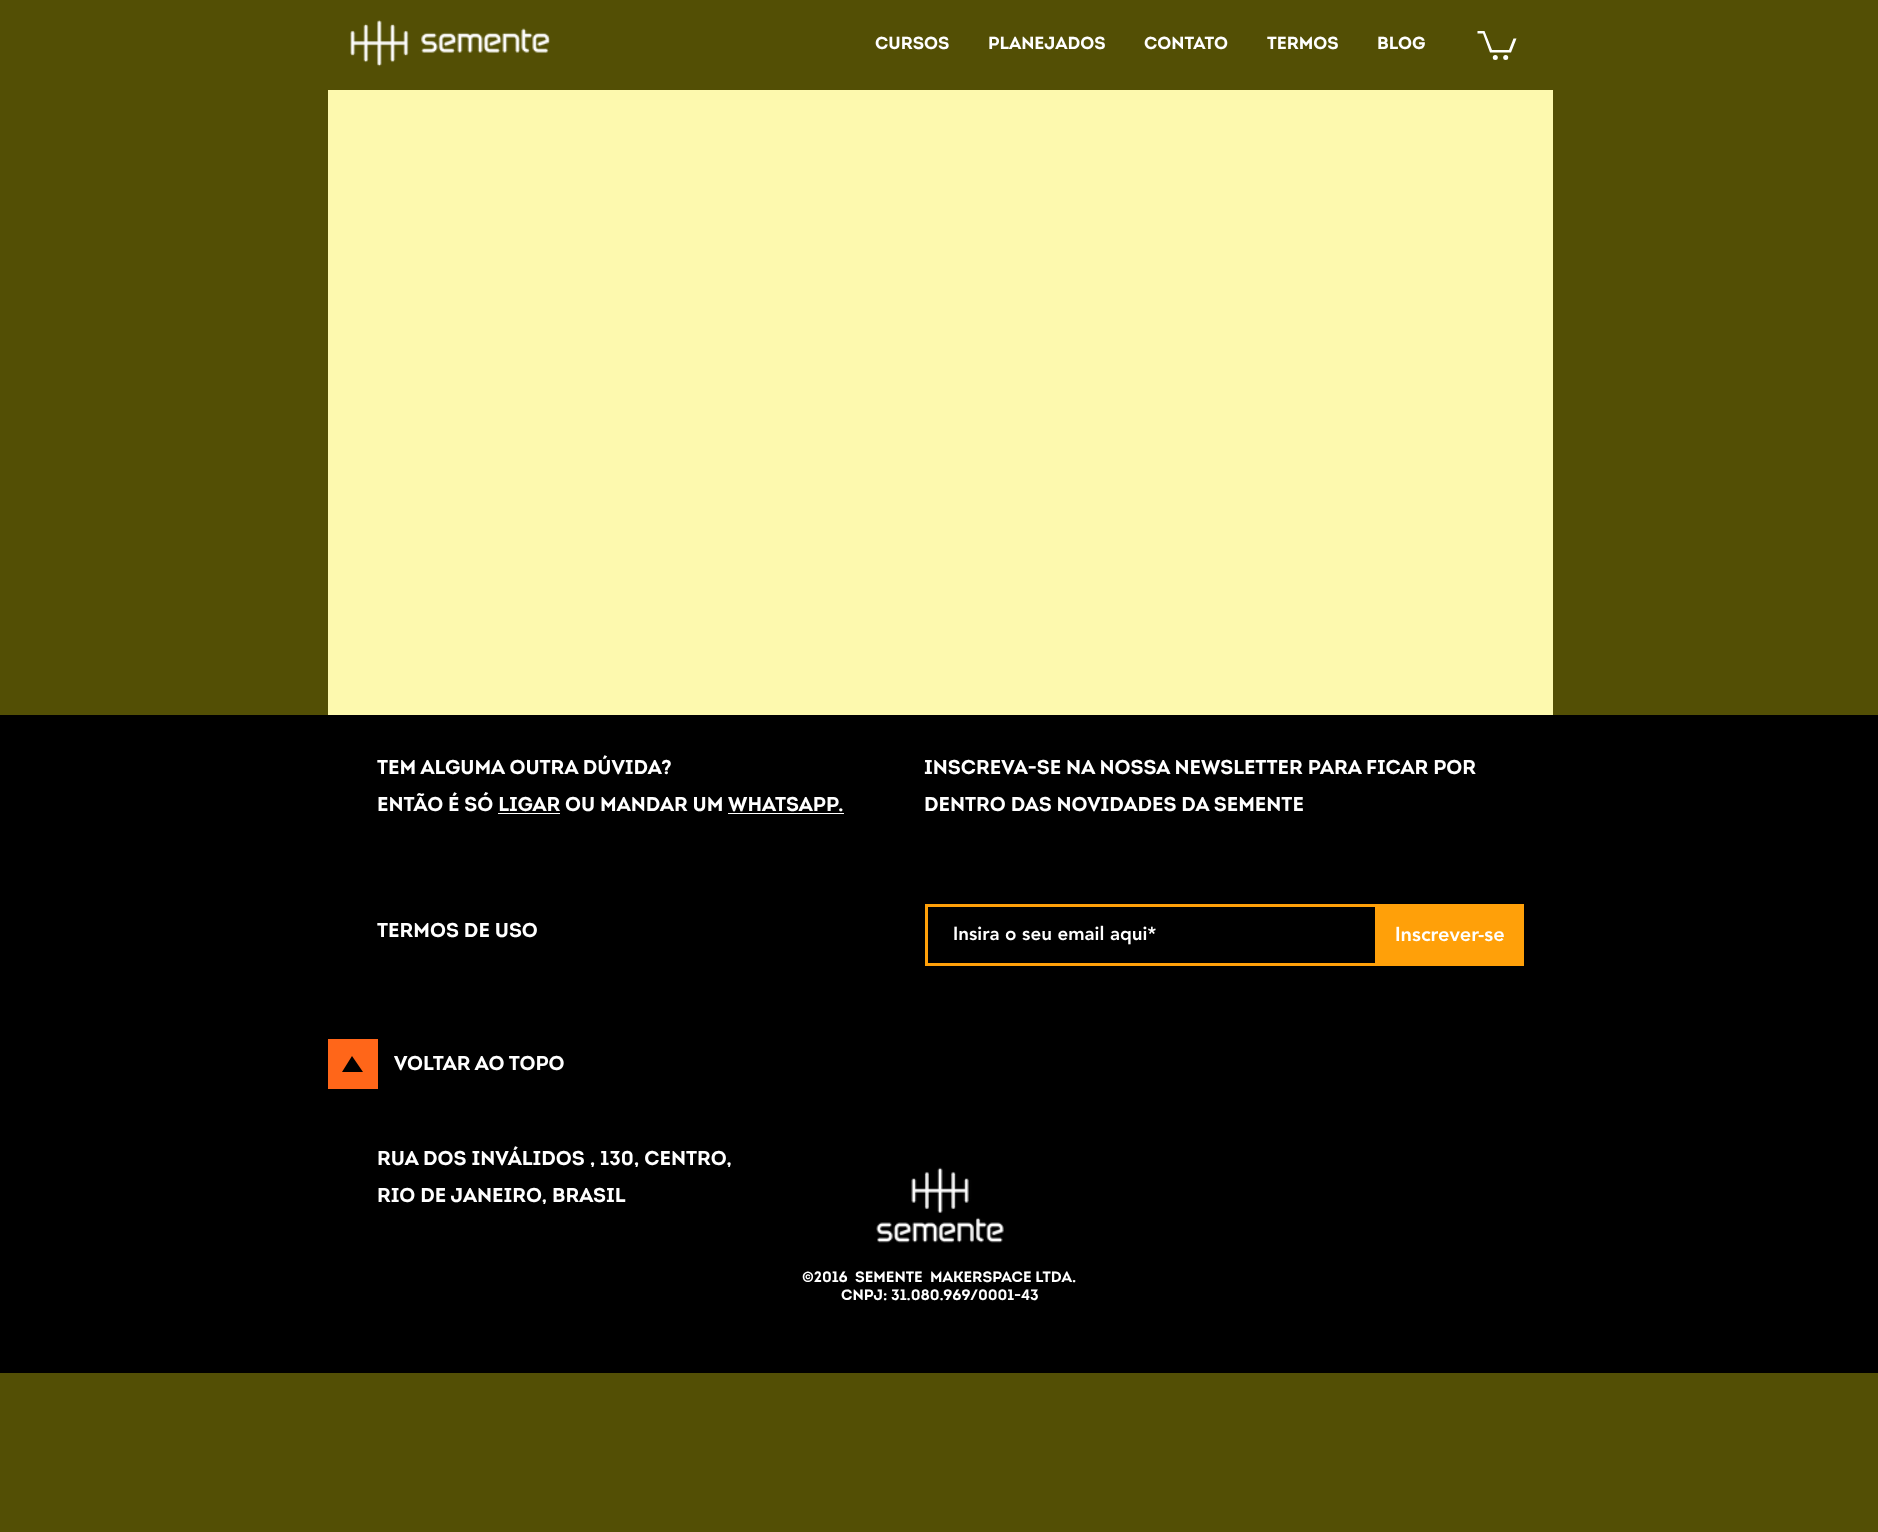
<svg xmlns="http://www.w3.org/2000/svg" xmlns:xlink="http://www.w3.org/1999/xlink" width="1878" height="1532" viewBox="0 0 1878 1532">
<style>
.cls-1{font:bold 17.5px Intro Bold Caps;fill:#ffffff}
.cls-2{font:bold 20px Intro Bold Caps;fill:#ffffff}
.cls-3{font:900 18.75px 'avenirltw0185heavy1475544';fill:#ffffff}
.cls-4{font:900 20px 'avenirltw0185heavy1475544';fill:#ffffff}
.cls-5{font:bold 15px Intro Bold Caps;fill:#ffffff}
</style>
<rect width="100%" height="100%" fill="#534f05"/>
<image xlink:href="image0.png" x="350" y="20" width="200" height="47"/>
<path fill="#ffffff" d="M1516.5 38.5L1511 52.5H1490L1483 33.5H1477.5V31H1484.5L1492 50H1509L1513.5 38.5"/>
<circle fill="#ffffff" cx="1505.7" cy="57.5" r="2.5"/>
<circle fill="#ffffff" cx="1495.3" cy="57.5" r="2.5"/>
<rect fill="#fdf9ae" x="328" y="90" width="1225" height="625"/>
<rect fill="#000000" x="0" y="715" width="1878" height="658"/>
<rect fill="#ffffff" x="498" y="813" width="62" height="1"/>
<rect fill="#ffffff" x="728" y="813" width="116" height="1"/>
<rect fill="none" stroke="#ffa009" stroke-width="3" x="926.5" y="905.5" width="450" height="59"/>
<rect fill="#ffa009" x="1378" y="904" width="146" height="62"/>
<path fill="#ff6619" d="M328 1039V1089H378V1039ZM342 1072L352 1056L363 1072Z"/>
<image xlink:href="image1.png" x="876" y="1167" width="128" height="76"/>
<text class="cls-1" x="875" y="49">Cursos</text>
<text class="cls-1" x="988" y="49">Planejados</text>
<text class="cls-1" x="1144" y="49">Contato</text>
<text class="cls-1" x="1267" y="49">Termos</text>
<text class="cls-1" x="1377" y="49">Blog</text>
<text class="cls-2"><tspan x="377" y="774">Tem alguma outra dúvida?</tspan><tspan x="377" y="811">Então é só ligar</tspan></text>
<text class="cls-2" x="565" y="811">ou mandar um</text>
<text class="cls-2" x="728" y="811">whatsapp.</text>
<text class="cls-2"><tspan x="924" y="774">Inscreva-se na nossa newsletter para ficar por</tspan><tspan x="924" y="811">dentro das novidades da semente</tspan></text>
<text class="cls-2" x="377" y="937">termos de uso</text>
<text class="cls-3" x="953" y="940">Insira o seu email aqui*</text>
<text class="cls-4" x="1395" y="941">Inscrever-se</text>
<text class="cls-2" x="394" y="1070">Voltar ao topo</text>
<text class="cls-2"><tspan x="377" y="1165">Rua dos inválidos , 130, centro,</tspan><tspan x="377" y="1202">rio de janeiro, brasil</tspan></text>
<text class="cls-5" xml:space="preserve" x="802" y="1282">©2016  Semente  Makerspace Ltda.</text>
<text class="cls-5" x="841" y="1300">CNPJ: 31.080.969/0001-43</text>
</svg>
